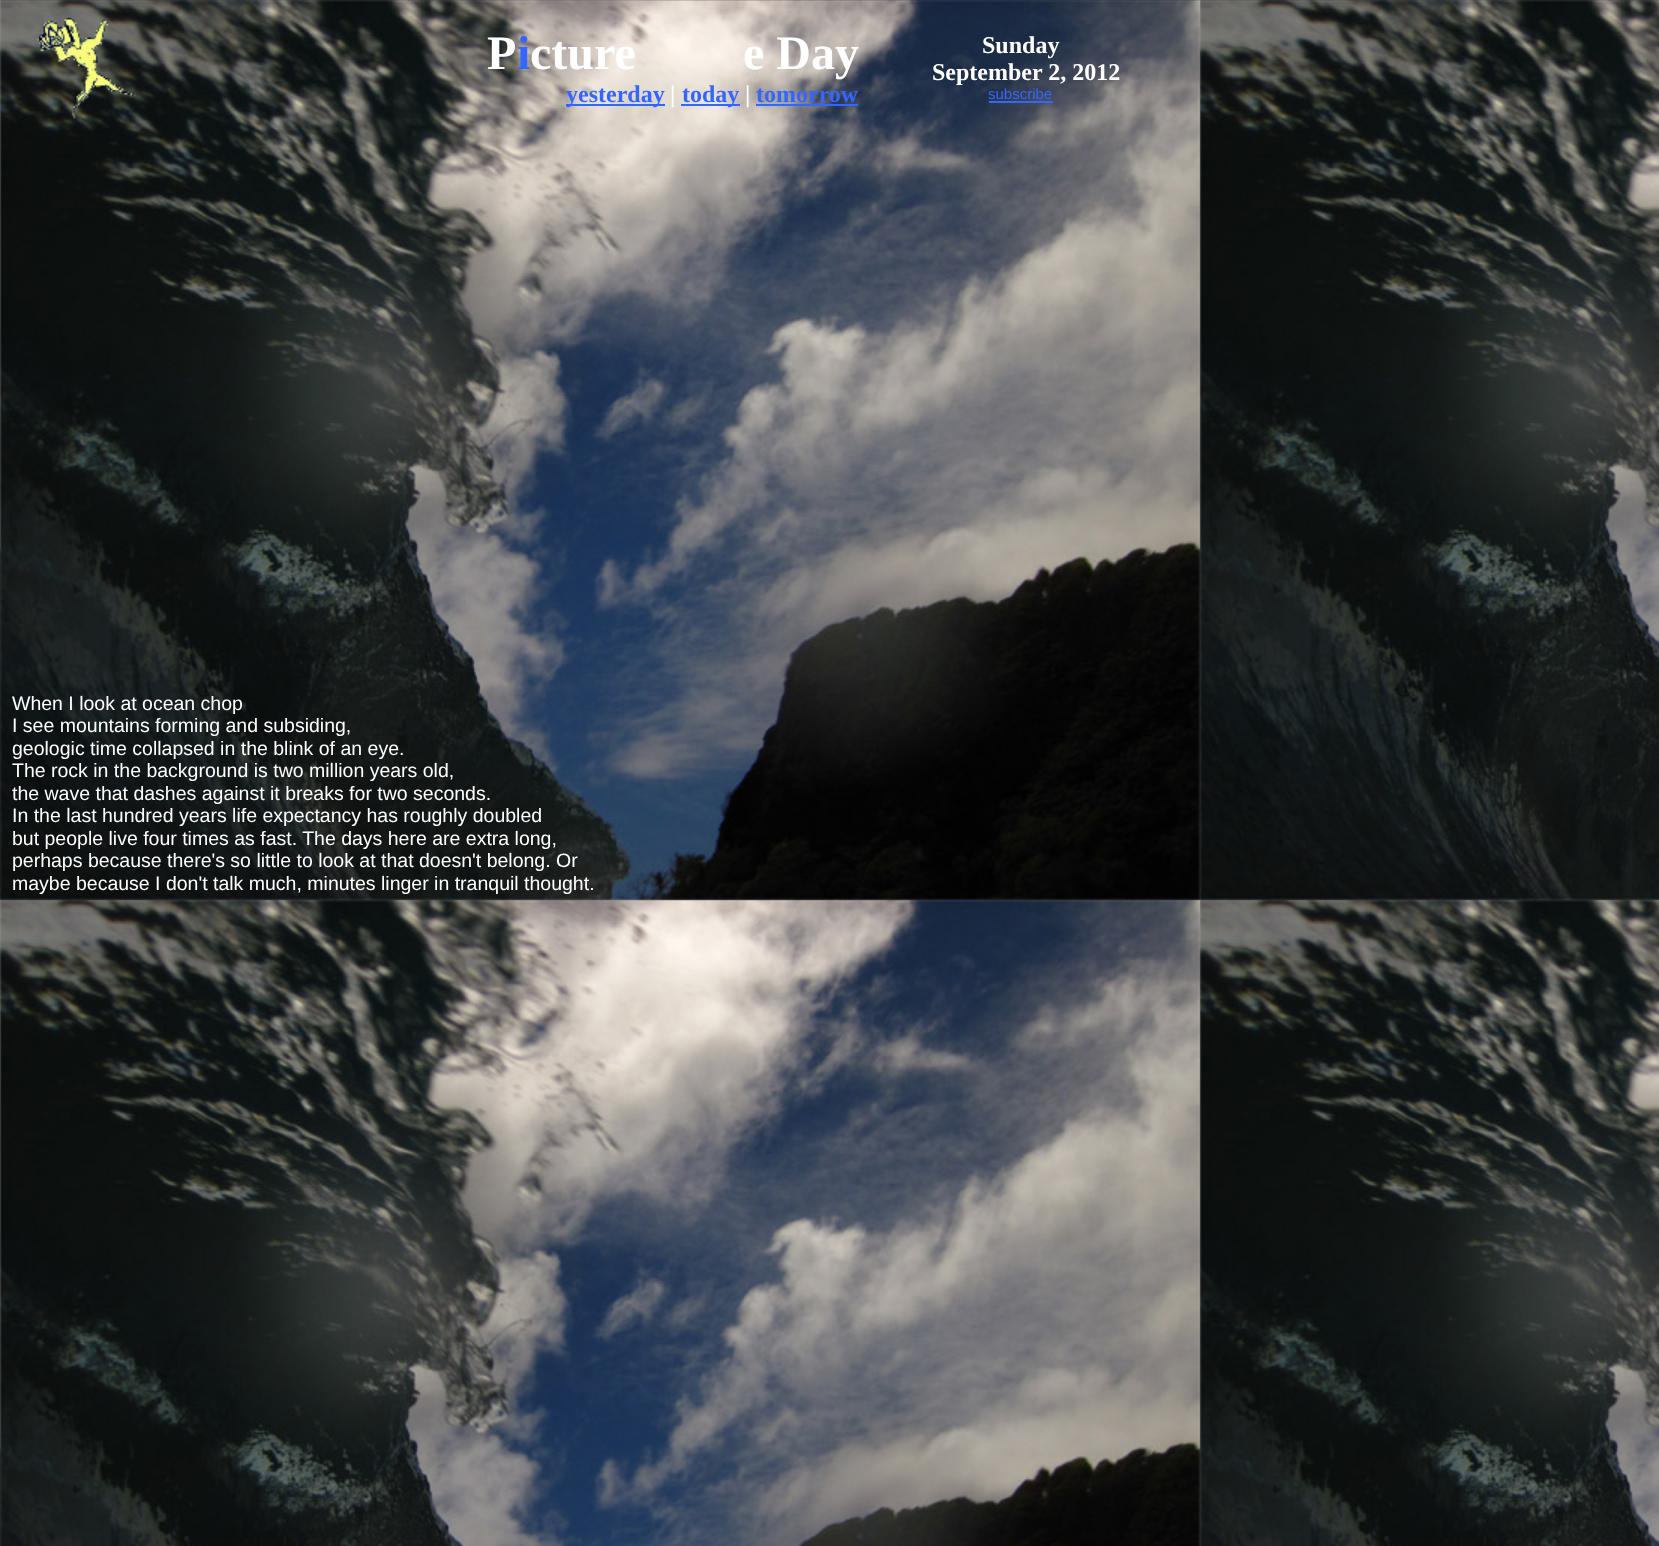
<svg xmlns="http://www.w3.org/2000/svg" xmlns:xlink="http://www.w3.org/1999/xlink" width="1659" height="1546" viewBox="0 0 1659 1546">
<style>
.cls-1{font:bold 48px Liberation Serif;fill:#ffffff}
.cls-2{font:bold 48px Liberation Serif;fill:#3366ff}
.cls-3{font:bold 24px Liberation Serif;fill:#3366ff}
.cls-4{font:bold 24px Liberation Serif;fill:#ffffff}
.cls-5{font:15px Liberation Sans;fill:#3366ff}
.cls-6{font:19.5px Liberation Sans;fill:#ffffff}
</style>
<rect width="100%" height="100%" fill="#ffffff"/>
<image xlink:href="image0.png" x="0" y="0" width="1659" height="1546"/>
<image xlink:href="image1.png" x="37" y="17" width="100" height="102"/>
<rect fill="#3366ff" x="566" y="104" width="99" height="2"/>
<rect fill="#3366ff" x="681" y="104" width="59" height="2"/>
<rect fill="#3366ff" x="756" y="104" width="102" height="2"/>
<rect fill="#3366ff" x="989" y="101" width="64" height="2"/>
<text class="cls-1" x="487" y="69">P</text>
<text class="cls-2" x="517" y="69">i</text>
<text class="cls-1" x="530" y="69">cture</text>
<text class="cls-1" x="743" y="69">e Day</text>
<text class="cls-3" x="566" y="102">yesterday</text>
<text class="cls-4" x="670" y="102">|</text>
<text class="cls-3" x="682" y="102">today</text>
<text class="cls-4" x="745" y="102">|</text>
<text class="cls-3" x="756" y="102">tomorrow</text>
<text class="cls-4" x="982" y="53">Sunday</text>
<text class="cls-4" x="932" y="80">September 2, 2012</text>
<text class="cls-5" x="988" y="99">subscribe</text>
<text class="cls-6"><tspan x="12" y="710">When I look at ocean chop</tspan><tspan x="12" y="732">I see mountains forming and subsiding,</tspan><tspan x="12" y="755">geologic time collapsed in the blink of an eye.</tspan><tspan x="12" y="777">The rock in the background is two million years old,</tspan><tspan x="12" y="800">the wave that dashes against it breaks for two seconds.</tspan><tspan x="12" y="822">In the last hundred years life expectancy has roughly doubled</tspan><tspan x="12" y="845">but people live four times as fast. The days here are extra long,</tspan><tspan x="12" y="867">perhaps because there's so little to look at that doesn't belong. Or</tspan><tspan x="12" y="890">maybe because I don't talk much, minutes linger in tranquil thought.</tspan></text>
</svg>
